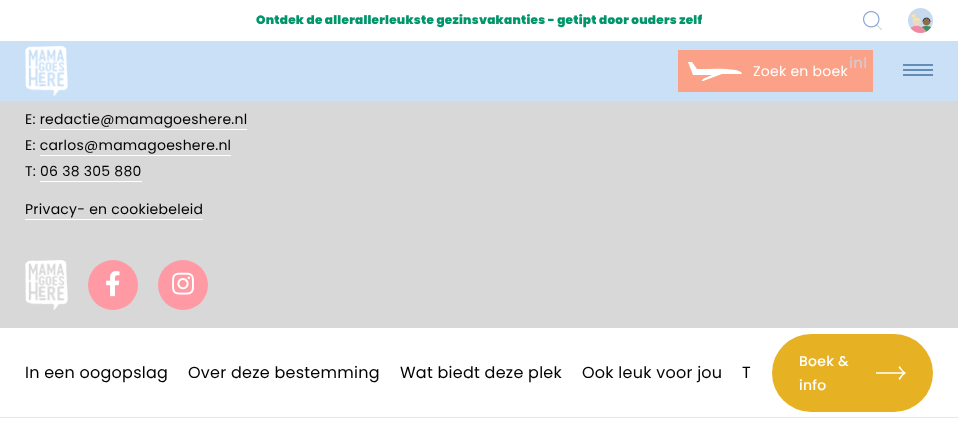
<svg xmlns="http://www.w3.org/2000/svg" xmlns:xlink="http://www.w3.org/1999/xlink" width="958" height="424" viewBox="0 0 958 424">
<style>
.cls-1{font:900 12px Poppins;letter-spacing:0.25px;fill:#00956b}
.cls-2{font:500 15px Poppins;letter-spacing:0.25px;fill:#d7c8ce}
.cls-3{font:14px Poppins;letter-spacing:0.25px;fill:#ffffff}
.cls-4{font:14px Poppins;letter-spacing:0.25px;fill:#020202}
.cls-5{font:16px Poppins;letter-spacing:0.25px;fill:#020202}
.cls-6{font:500 14px Poppins;letter-spacing:0.25px;fill:#ffffff}
</style>
<rect width="100%" height="100%" fill="#d8d8d8"/>
<rect fill="#ffffff" x="0" y="0" width="958" height="41"/>
<image xlink:href="image0.png" x="863" y="11" width="19" height="19"/>
<image xlink:href="image1.png" x="908" y="8" width="25" height="25"/>
<rect fill="#c9e0f7" x="0" y="41" width="958" height="60"/>
<image xlink:href="image2.png" x="25" y="46" width="43" height="50"/>
<rect fill="#fba187" x="678" y="50" width="195" height="42"/>
<path fill="#ffffff" fill-rule="evenodd" d="M697 69C710 69 723 68 736 70L741 72L742 74H722L703 81C700 81 703 80 703 79L712 75H693L688 62H692Z"/>
<rect fill="#638db7" x="903" y="74" width="30" height="2"/>
<rect fill="#638db7" x="903" y="64" width="30" height="2"/>
<rect fill="#638db7" x="903" y="69" width="30" height="2"/>
<rect fill="#ffffff" x="40" y="129" width="207" height="1"/>
<rect fill="#ffffff" x="40" y="155" width="191" height="1"/>
<rect fill="#ffffff" x="40" y="181" width="102" height="1"/>
<rect fill="#ffffff" x="25" y="219" width="178" height="1"/>
<image xlink:href="image3.png" x="25" y="260" width="43" height="50"/>
<circle fill="#ff99a4" cx="113" cy="285" r="25"/>
<image xlink:href="image4.png" x="106" y="271" width="14" height="26"/>
<circle fill="#ff99a4" cx="183" cy="285" r="25"/>
<image xlink:href="image5.png" x="172" y="272" width="22" height="23"/>
<rect fill="#ffffff" x="0" y="328" width="958" height="96"/>
<rect fill="#e6b123" x="772" y="334" width="161" height="78" rx="39"/>
<image xlink:href="image6.png" x="876" y="366" width="30" height="14"/>
<rect fill="#e6e6e6" x="0" y="417" width="958" height="1"/>
<text class="cls-1" x="256" y="24">Ontdek de allerallerleukste gezinsvakanties - getipt door ouders zelf</text>
<text class="cls-2" x="849" y="68">inl</text>
<text class="cls-3" x="753" y="76">Zoek en boek</text>
<text class="cls-4"><tspan x="25" y="124">E: redactie@mamagoeshere.nl</tspan><tspan x="25" y="150">E: carlos@mamagoeshere.nl</tspan><tspan x="25" y="176">T: 06 38 305 880</tspan></text>
<text class="cls-4" x="25" y="214">Privacy- en cookiebeleid</text>
<text class="cls-5" x="25" y="378">In een oogopslag</text>
<text class="cls-5" x="188" y="378">Over deze bestemming</text>
<text class="cls-5" x="400" y="378">Wat biedt deze plek</text>
<text class="cls-5" x="582" y="378">Ook leuk voor jou</text>
<text class="cls-5" x="742" y="378">T</text>
<text class="cls-6"><tspan x="799" y="366">Boek &amp;</tspan><tspan x="799" y="390">info</tspan></text>
</svg>
